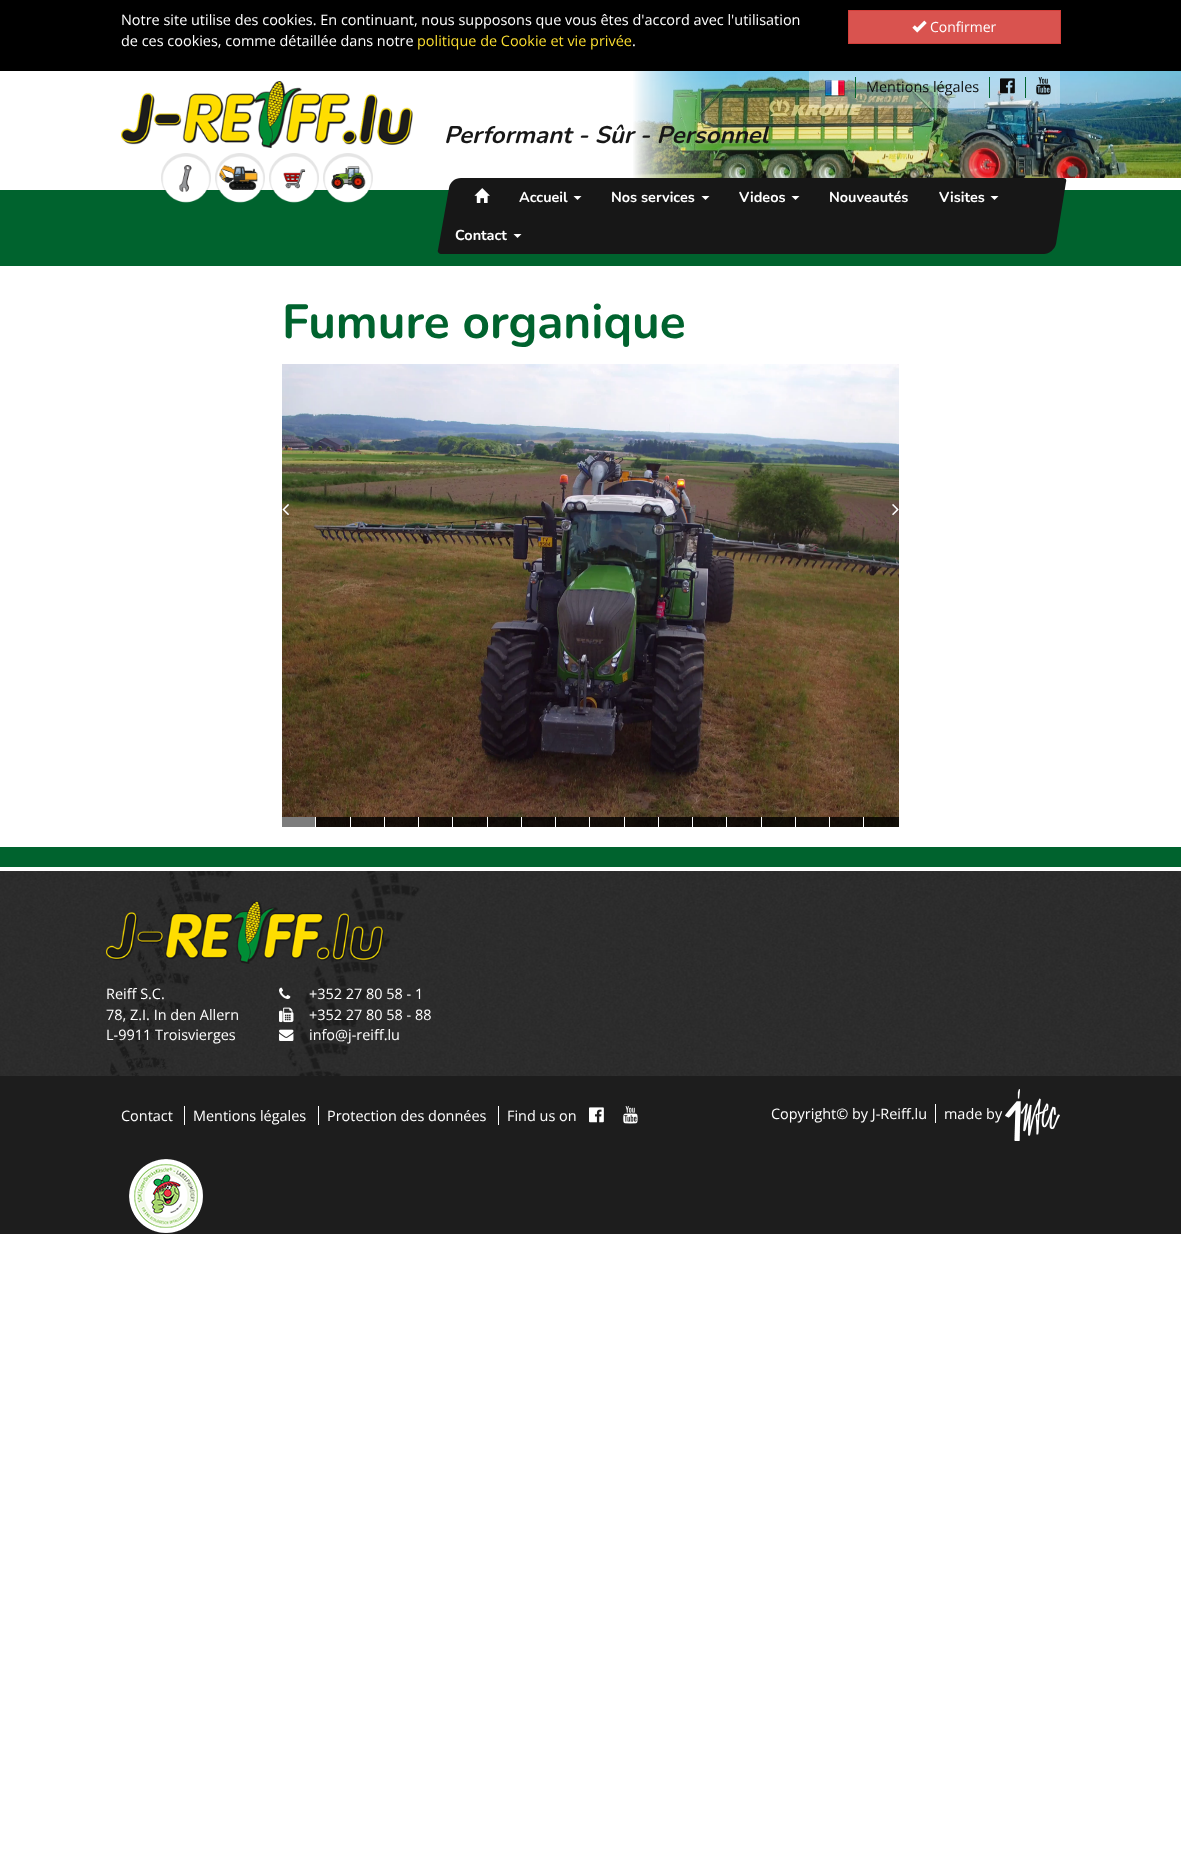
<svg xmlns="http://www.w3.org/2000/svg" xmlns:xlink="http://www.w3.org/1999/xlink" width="1181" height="1855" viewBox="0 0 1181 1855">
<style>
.cls-1{font:14.45px Open Sans;fill:#ffffff}
.cls-2{font:14.45px Open Sans;fill:#f9dc30}
.cls-3{font:14px Open Sans;fill:#ffffff}
.cls-4{font:14.45px Open Sans;fill:#0d0d0d}
.cls-5{font:italic bold 24px Nunito;fill:#171717}
.cls-6{font:bold 14.45px Nunito;fill:#ffffff}
.cls-7{font:bold 47.75px Nunito;fill:#00632e}
</style>
<rect width="100%" height="100%" fill="#ffffff"/>
<rect fill="#000000" x="0" y="0" width="1181" height="71"/>
<rect fill="#d9534f" stroke="#d43f3a" x="848.5" y="10.5" width="212" height="33"/>
<image xlink:href="image0.png" x="912" y="20" width="15" height="13"/>
<image xlink:href="image1.png" x="633" y="71" width="548" height="107"/>
<image xlink:href="image2.png" x="121" y="81" width="292" height="67"/>
<rect fill="#ffffff" fill-opacity="0.3" x="809" y="71" width="251" height="37"/>
<rect fill="#00632e" x="855" y="77" width="1" height="21"/>
<image xlink:href="image3.png" x="825" y="80" width="20" height="16"/>
<rect fill="#00632e" x="989" y="77" width="1" height="21"/>
<rect fill="#00632e" x="1025" y="77" width="1" height="21"/>
<image xlink:href="image4.png" x="1000" y="78" width="15" height="16"/>
<image xlink:href="image5.png" x="1036" y="77" width="15" height="18"/>
<rect fill="#00632e" x="0" y="190" width="1181" height="76"/>
<image xlink:href="image6.png" x="161" y="153" width="50" height="50"/>
<image xlink:href="image7.png" x="215" y="153" width="50" height="50"/>
<image xlink:href="image8.png" x="269" y="153" width="50" height="50"/>
<image xlink:href="image9.png" x="323" y="153" width="50" height="50"/>
<path fill="#171717" d="M461 178H1063C1065 178 1067 179 1066 182L1056 244C1055 249 1049 254 1044 254H441C439 254 437 252 438 250L449 188C450 182 455 178 461 178Z"/>
<image xlink:href="image10.png" x="474" y="188" width="16" height="15"/>
<path fill="#ffffff" d="M573.5 196H581.5L577.5 200Z"/>
<path fill="#ffffff" d="M701.5 196H709.5L705.5 200Z"/>
<path fill="#ffffff" d="M791.5 196H799.5L795.5 200Z"/>
<path fill="#ffffff" d="M990.5 196H998.5L994.5 200Z"/>
<path fill="#ffffff" d="M513.5 234H521.5L517.5 238Z"/>
<image xlink:href="image11.png" x="282" y="364" width="617" height="463"/>
<image xlink:href="image12.png" x="282" y="504" width="7" height="12"/>
<image xlink:href="image13.png" x="892" y="504" width="7" height="12"/>
<rect fill="#7d7d7d" x="282" y="817" width="33" height="10"/>
<rect fill="#ffffff" x="315" y="817" width="1" height="10"/>
<rect fill="#000000" fill-opacity="0.8" x="316" y="817" width="34" height="10"/>
<rect fill="#ffffff" x="350" y="817" width="1" height="10"/>
<rect fill="#000000" fill-opacity="0.8" x="351" y="817" width="33" height="10"/>
<rect fill="#ffffff" x="384" y="817" width="1" height="10"/>
<rect fill="#000000" fill-opacity="0.8" x="385" y="817" width="33" height="10"/>
<rect fill="#ffffff" x="418" y="817" width="1" height="10"/>
<rect fill="#000000" fill-opacity="0.8" x="419" y="817" width="33" height="10"/>
<rect fill="#ffffff" x="452" y="817" width="1" height="10"/>
<rect fill="#000000" fill-opacity="0.8" x="453" y="817" width="34" height="10"/>
<rect fill="#ffffff" x="487" y="817" width="1" height="10"/>
<rect fill="#000000" fill-opacity="0.8" x="488" y="817" width="33" height="10"/>
<rect fill="#ffffff" x="521" y="817" width="1" height="10"/>
<rect fill="#000000" fill-opacity="0.8" x="522" y="817" width="33" height="10"/>
<rect fill="#ffffff" x="555" y="817" width="1" height="10"/>
<rect fill="#000000" fill-opacity="0.8" x="556" y="817" width="33" height="10"/>
<rect fill="#ffffff" x="589" y="817" width="1" height="10"/>
<rect fill="#000000" fill-opacity="0.8" x="590" y="817" width="34" height="10"/>
<rect fill="#ffffff" x="624" y="817" width="1" height="10"/>
<rect fill="#000000" fill-opacity="0.8" x="625" y="817" width="33" height="10"/>
<rect fill="#ffffff" x="658" y="817" width="1" height="10"/>
<rect fill="#000000" fill-opacity="0.8" x="659" y="817" width="33" height="10"/>
<rect fill="#ffffff" x="692" y="817" width="1" height="10"/>
<rect fill="#000000" fill-opacity="0.8" x="693" y="817" width="33" height="10"/>
<rect fill="#ffffff" x="726" y="817" width="1" height="10"/>
<rect fill="#000000" fill-opacity="0.8" x="727" y="817" width="34" height="10"/>
<rect fill="#ffffff" x="761" y="817" width="1" height="10"/>
<rect fill="#000000" fill-opacity="0.8" x="762" y="817" width="33" height="10"/>
<rect fill="#ffffff" x="795" y="817" width="1" height="10"/>
<rect fill="#000000" fill-opacity="0.8" x="796" y="817" width="33" height="10"/>
<rect fill="#ffffff" x="829" y="817" width="1" height="10"/>
<rect fill="#000000" fill-opacity="0.8" x="830" y="817" width="33" height="10"/>
<rect fill="#ffffff" x="863" y="817" width="1" height="10"/>
<rect fill="#000000" fill-opacity="0.8" x="864" y="817" width="35" height="10"/>
<rect fill="#00632e" x="0" y="847" width="1181" height="20"/>
<image xlink:href="image14.png" x="0" y="871" width="1181" height="205"/>
<image xlink:href="image15.png" x="110" y="871" width="322" height="205"/>
<image xlink:href="image16.png" x="106" y="901" width="278" height="63"/>
<image xlink:href="image17.png" x="279" y="987" width="12" height="12"/>
<image xlink:href="image18.png" x="279" y="1007" width="15" height="16"/>
<image xlink:href="image19.png" x="279" y="1029" width="15" height="12"/>
<rect fill="#1d1d1d" x="0" y="1076" width="1181" height="158"/>
<rect fill="#ffffff" x="184" y="1106" width="1" height="19"/>
<rect fill="#ffffff" x="318" y="1106" width="1" height="19"/>
<rect fill="#ffffff" x="498" y="1106" width="1" height="19"/>
<image xlink:href="image20.png" x="589" y="1107" width="15" height="16"/>
<image xlink:href="image21.png" x="623" y="1106" width="15" height="18"/>
<image xlink:href="image22.png" x="129" y="1159" width="74" height="74"/>
<rect fill="#ffffff" x="935" y="1104" width="1" height="19"/>
<image xlink:href="image23.png" x="1005" y="1089" width="55" height="52"/>
<text class="cls-1"><tspan x="121" y="25">Notre site utilise des cookies. En continuant, nous supposons que vous êtes d'accord avec l'utilisation</tspan><tspan x="121" y="46">de ces cookies, comme détaillée dans notre</tspan></text>
<text class="cls-2" x="417" y="46">politique de Cookie et vie privée</text>
<text class="cls-1" x="632" y="46">.</text>
<text class="cls-3" x="930" y="32">Confirmer</text>
<text class="cls-4" x="866" y="92">Mentions légales</text>
<text class="cls-5" x="444" y="143">Performant - Sûr - Personnel</text>
<text class="cls-6" x="519" y="202">Accueil</text>
<text class="cls-6" x="611" y="202">Nos services</text>
<text class="cls-6" x="739" y="202">Videos</text>
<text class="cls-6" x="829" y="202">Nouveautés</text>
<text class="cls-6" x="939" y="202">Visites</text>
<text class="cls-6" x="455" y="240">Contact</text>
<text class="cls-7" x="282" y="338">Fumure organique</text>
<text class="cls-1"><tspan x="106" y="999">Reiff S.C.</tspan><tspan x="106" y="1020">78, Z.I. In den Allern</tspan><tspan x="106" y="1040">L-9911 Troisvierges</tspan></text>
<text class="cls-1"><tspan x="309" y="999">+352 27 80 58 - 1</tspan><tspan x="309" y="1020">+352 27 80 58 - 88</tspan><tspan x="309" y="1040">info@j-reiff.lu</tspan></text>
<text class="cls-1" x="121" y="1121">Contact</text>
<text class="cls-1" x="193" y="1121">Mentions légales</text>
<text class="cls-1" x="327" y="1121">Protection des données</text>
<text class="cls-1" x="507" y="1121">Find us on</text>
<text class="cls-1" x="771" y="1119">Copyright© by J-Reiff.lu</text>
<text class="cls-1" x="944" y="1119">made by</text>
</svg>
